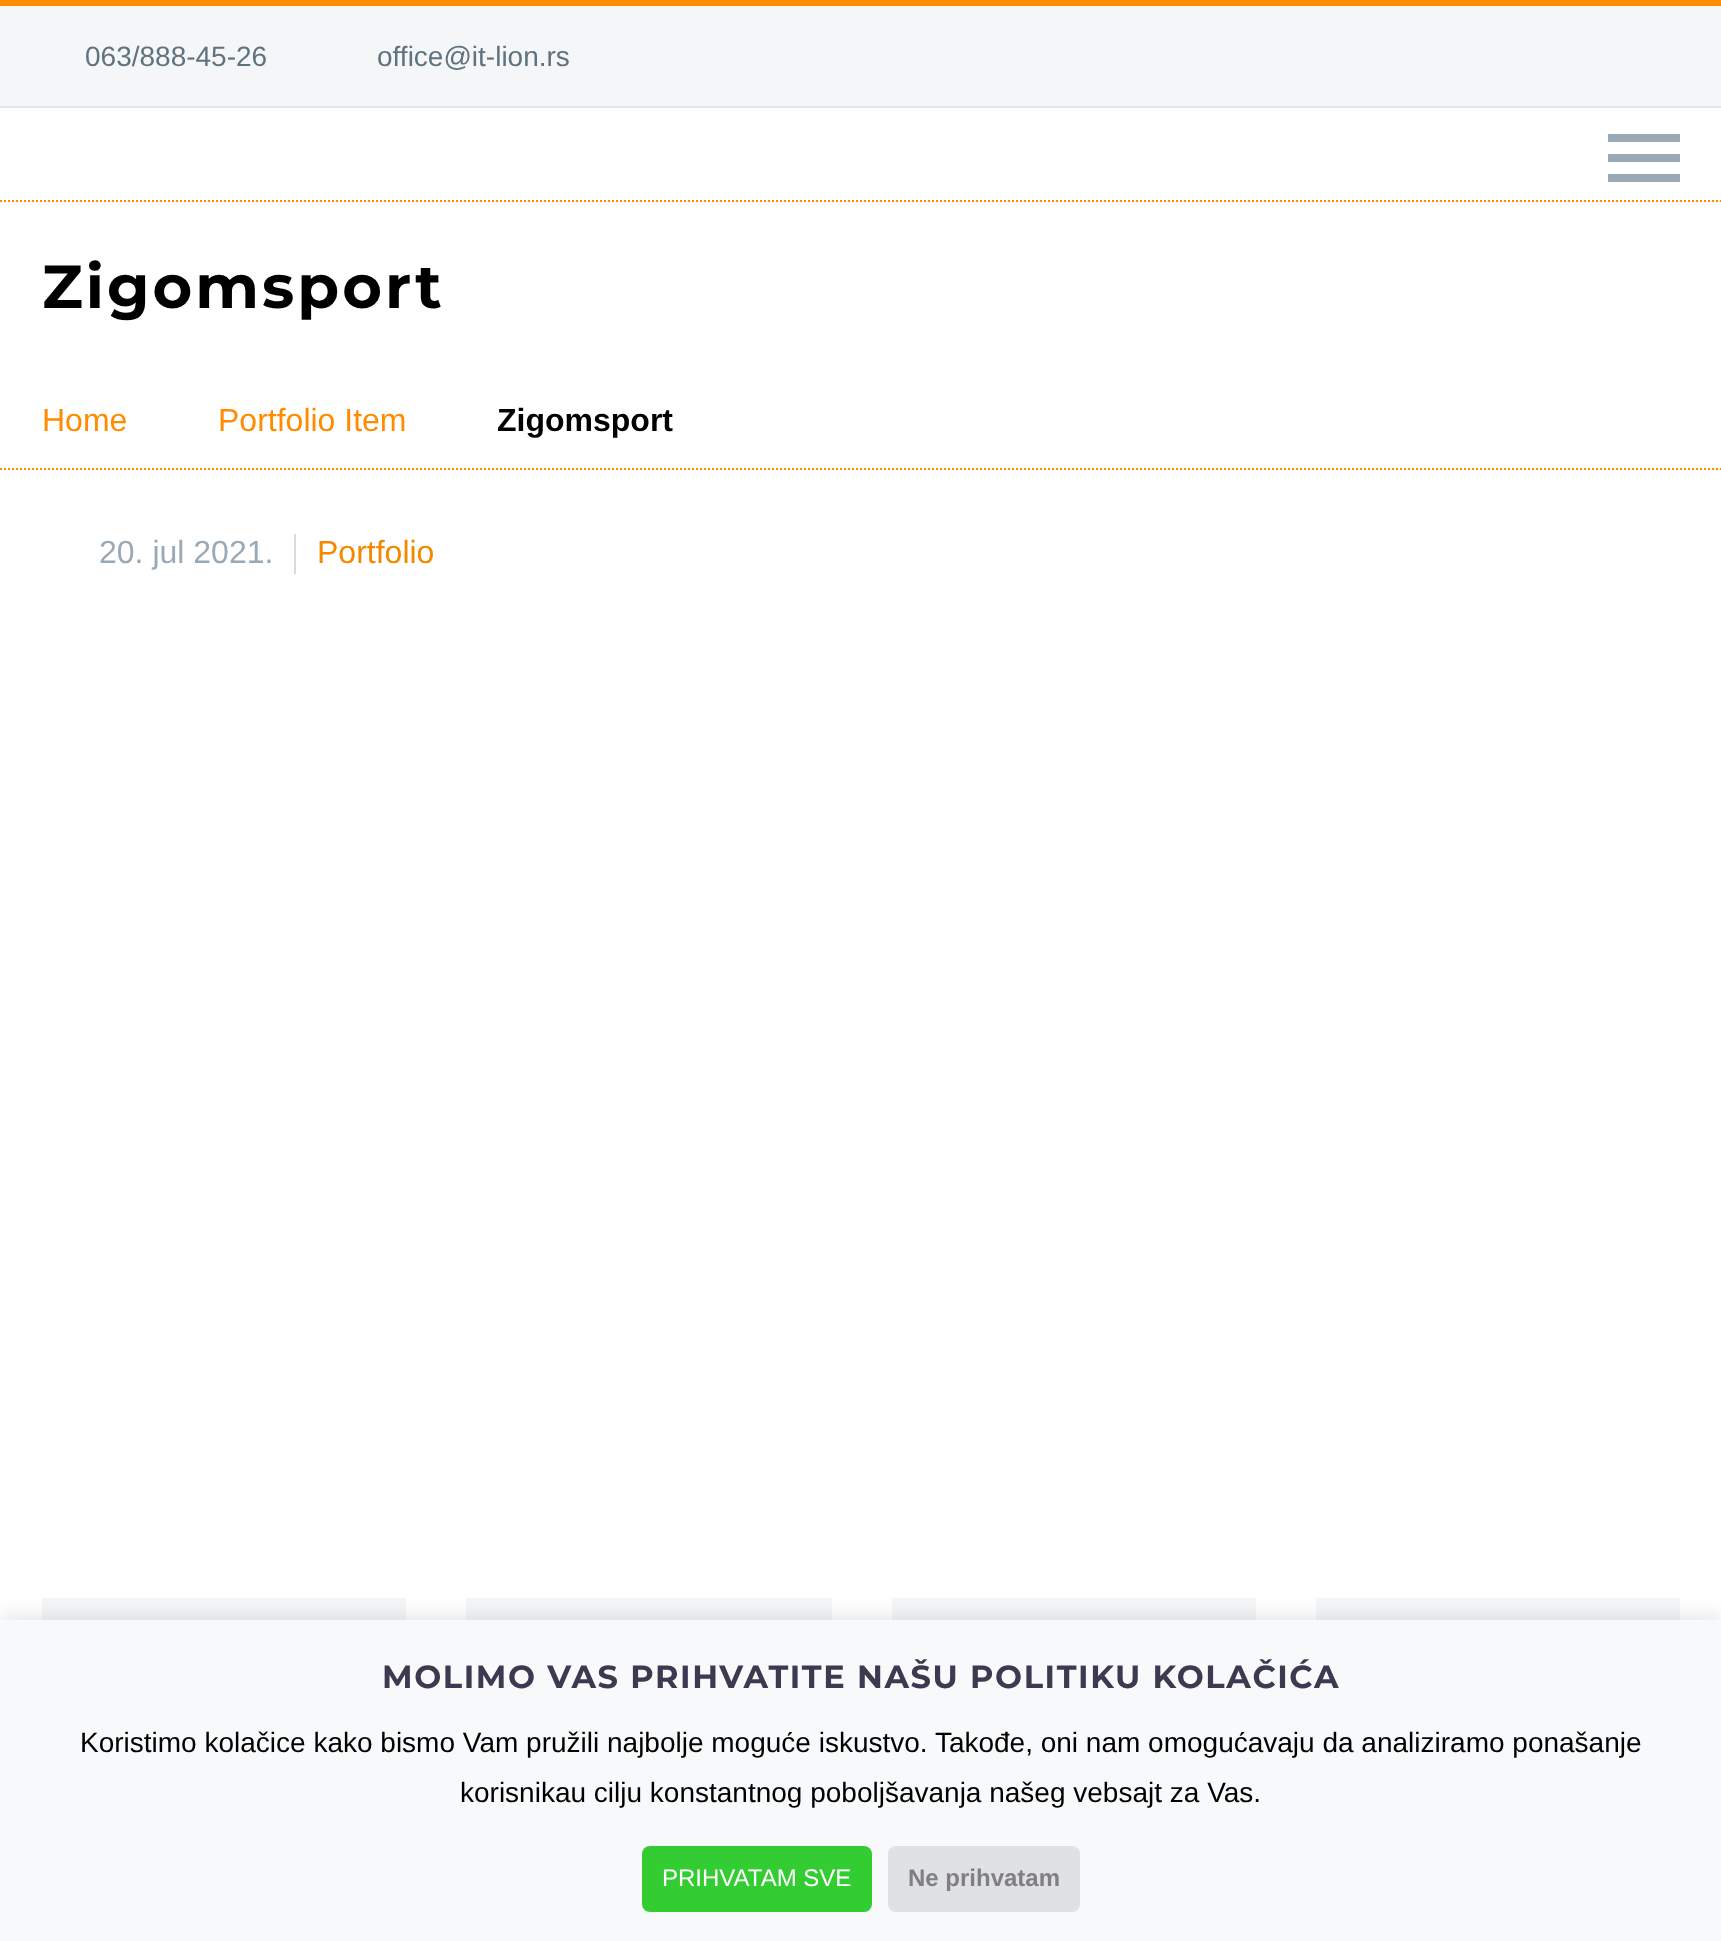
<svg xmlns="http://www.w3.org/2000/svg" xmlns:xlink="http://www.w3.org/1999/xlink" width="1721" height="1941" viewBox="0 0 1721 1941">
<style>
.cls-1{font:28px Liberation Sans;fill:#5f727f}
.cls-2{font:bold 60.75px Montserrat;letter-spacing:3px;fill:#000000}
.cls-3{font:32px Liberation Sans;fill:#ff8c00}
.cls-4{font:bold 32px Liberation Sans;fill:#000000}
.cls-5{font:32px Liberation Sans;fill:#99a9b5}
.cls-6{font:32px Liberation Sans;fill:#f28900}
.cls-7{font:bold 32px Montserrat;letter-spacing:1.6px;fill:#3c3950}
.cls-8{font:28px Liberation Sans;fill:#000000}
.cls-9{font:24px Liberation Sans;fill:#ffffff}
.cls-10{font:bold 24px Liberation Sans;fill:#808080}
</style>
<rect width="100%" height="100%" fill="#ffffff"/>
<rect fill="#f4f6f7" x="0" y="6" width="1721" height="100"/>
<rect fill="#ff8c00" x="0" y="0" width="1721" height="6"/>
<rect fill="#dfe5e8" x="0" y="106" width="1721" height="2"/>
<rect fill="#99a9b5" x="1608" y="134" width="72" height="8"/>
<rect fill="#99a9b5" x="1608" y="154" width="72" height="8"/>
<rect fill="#99a9b5" x="1608" y="174" width="72" height="8"/>
<path fill="none" stroke="#ff8c00" stroke-width="2" stroke-dasharray="2 2" d="M0 201H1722"/>
<path fill="none" stroke="#ff8c00" stroke-width="2" stroke-dasharray="2 2" d="M0 469H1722"/>
<rect fill="#d4dee1" x="294" y="534" width="2" height="40"/>
<rect fill="#f4f6f7" x="42" y="1598" width="364" height="22"/>
<rect fill="#f4f6f7" x="466" y="1598" width="366" height="22"/>
<rect fill="#f4f6f7" x="892" y="1598" width="364" height="22"/>
<rect fill="#f4f6f7" x="1316" y="1598" width="364" height="22"/>
<rect fill="#000000" fill-opacity="0.1" filter="blur(10px)" x="0" y="1616" width="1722" height="322"/>
<rect fill="#f8f9fa" x="0" y="1620" width="1721" height="321"/>
<rect fill="#33cd33" x="642" y="1846" width="230" height="66" rx="8"/>
<rect fill="#dfe1e5" x="888" y="1846" width="192" height="66" rx="8"/>
<text class="cls-1" x="85" y="66">063/888-45-26</text>
<text class="cls-1" x="377" y="66">office@it-lion.rs</text>
<text class="cls-2" x="42" y="308">Zigomsport</text>
<text class="cls-3" x="42" y="431">Home</text>
<text class="cls-3" x="218" y="431">Portfolio Item</text>
<text class="cls-4" x="497" y="431">Zigomsport</text>
<text class="cls-5" x="99" y="563">20. jul 2021.</text>
<text class="cls-6" x="317" y="563">Portfolio</text>
<text class="cls-7" x="382" y="1688">MOLIMO VAS PRIHVATITE NAŠU POLITIKU KOLAČIĆA</text>
<text class="cls-8" x="80" y="1752">Koristimo kolačice kako bismo Vam pružili najbolje moguće iskustvo. Takođe, oni nam omogućavaju da analiziramo ponašanje</text>
<text class="cls-8" x="460" y="1802">korisnikau cilju konstantnog poboljšavanja našeg vebsajt za Vas.</text>
<text class="cls-9" x="662" y="1886">PRIHVATAM SVE</text>
<text class="cls-10" x="908" y="1886">Ne prihvatam</text>
</svg>
